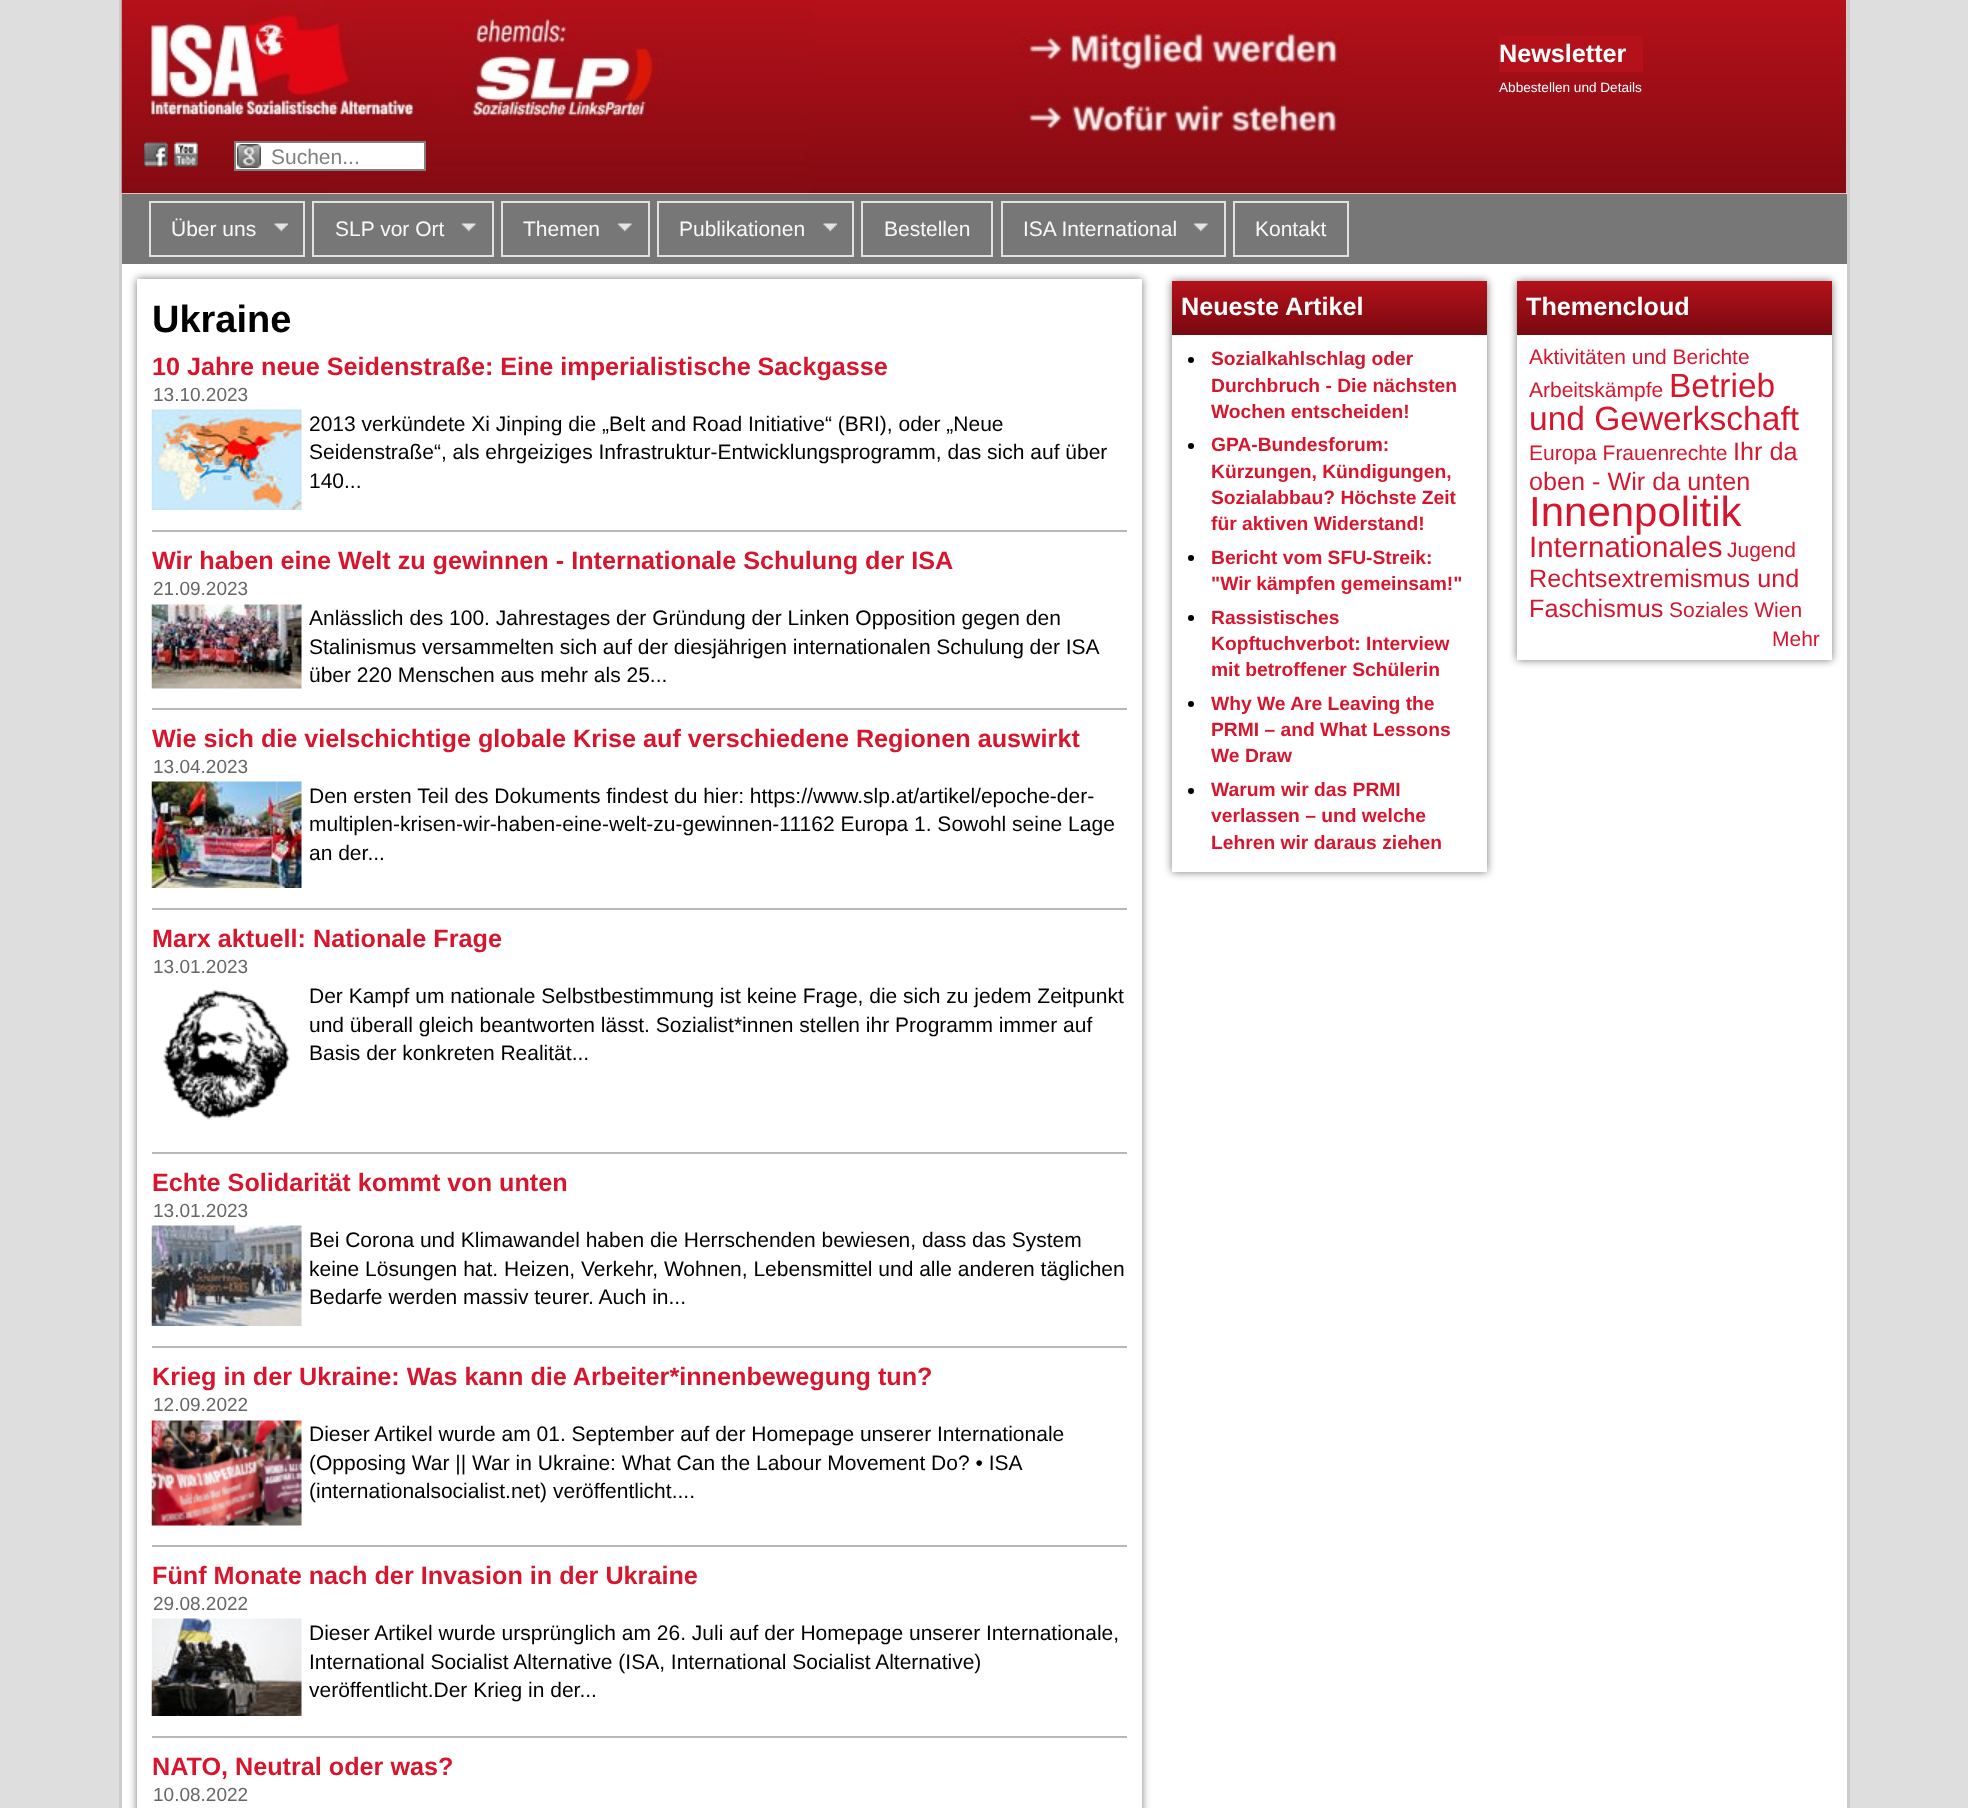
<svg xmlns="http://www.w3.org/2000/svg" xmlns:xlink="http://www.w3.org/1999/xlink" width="1968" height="1808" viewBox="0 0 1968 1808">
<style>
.cls-1{font:bold 25.2px Liberation Sans;fill:#ffffff}
.cls-2{font:13.6px Liberation Sans;fill:#ffffff}
.cls-3{font:21px Liberation Sans;fill:#808080}
.cls-4{font:21px Liberation Sans;fill:#f8f8f8}
.cls-5{font:bold 38px Liberation Sans;fill:#000000}
.cls-6{font:bold 25.2px Liberation Sans;fill:#d7162e}
.cls-7{font:19px Liberation Sans;fill:#666666}
.cls-8{font:21px Liberation Sans;fill:#000000}
.cls-9{font:bold 19.25px Liberation Sans;fill:#d7162e}
.cls-10{font:21px Liberation Sans;fill:#d7162e}
.cls-11{font:33.5px Liberation Sans;fill:#d7162e}
.cls-12{font:25.2px Liberation Sans;fill:#d7162e}
.cls-13{font:42px Liberation Sans;fill:#d7162e}
.cls-14{font:29.5px Liberation Sans;fill:#d7162e}
</style>
<defs>
<clipPath id="clip1"><path d="M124 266H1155V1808H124ZM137 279H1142V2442H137Z" clip-rule="evenodd"/></clipPath>
<clipPath id="clip2"><path d="M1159 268H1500V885H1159ZM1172 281H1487V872H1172Z" clip-rule="evenodd"/></clipPath>
<linearGradient id="g1" gradientUnits="userSpaceOnUse" x1="1329" y1="281" x2="1329" y2="335"><stop offset="0" stop-color="#b5111a"/><stop offset="1" stop-color="#780910"/></linearGradient>
<clipPath id="clip3"><path d="M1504 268H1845V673H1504ZM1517 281H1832V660H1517Z" clip-rule="evenodd"/></clipPath>
<linearGradient id="g2" gradientUnits="userSpaceOnUse" x1="1674" y1="281" x2="1674" y2="335"><stop offset="0" stop-color="#b5111a"/><stop offset="1" stop-color="#780910"/></linearGradient>
</defs>
<rect width="100%" height="100%" fill="#dedede"/>
<rect fill="#ffffff" x="122" y="0" width="1725" height="1808"/>
<rect fill="#cccccc" x="1847" y="0" width="3" height="1808"/>
<rect fill="#cccccc" x="119" y="0" width="3" height="1808"/>
<image xlink:href="image0.png" x="121" y="0" width="1726" height="194"/>
<rect fill="#b5111a" x="1499" y="36" width="144" height="36"/>
<image xlink:href="image1.png" x="144" y="142" width="24" height="25"/>
<image xlink:href="image2.png" x="174" y="142" width="24" height="25"/>
<rect fill="#ffffff" x="236" y="143" width="188" height="26"/>
<image xlink:href="image3.png" x="237" y="144" width="24" height="24"/>
<rect fill="none" stroke="#808080" stroke-width="2" x="235" y="142" width="190" height="28"/>
<rect fill="#777777" x="122" y="194" width="1725" height="70"/>
<rect fill="none" stroke="#e1e1e1" stroke-width="2" x="150" y="202" width="154" height="54"/>
<image xlink:href="image4.png" x="274" y="223" width="14" height="9"/>
<rect fill="none" stroke="#e1e1e1" stroke-width="2" x="313" y="202" width="180" height="54"/>
<image xlink:href="image5.png" x="461" y="223" width="15" height="9"/>
<rect fill="none" stroke="#e1e1e1" stroke-width="2" x="502" y="202" width="147" height="54"/>
<image xlink:href="image6.png" x="617" y="223" width="15" height="9"/>
<rect fill="none" stroke="#e1e1e1" stroke-width="2" x="658" y="202" width="195" height="54"/>
<image xlink:href="image7.png" x="823" y="223" width="14" height="9"/>
<rect fill="none" stroke="#e1e1e1" stroke-width="2" x="862" y="202" width="130" height="54"/>
<rect fill="none" stroke="#e1e1e1" stroke-width="2" x="1002" y="202" width="223" height="54"/>
<image xlink:href="image6.png" x="1193" y="223" width="15" height="9"/>
<rect fill="none" stroke="#e1e1e1" stroke-width="2" x="1234" y="202" width="114" height="54"/>
<g clip-path="url(#clip1)">
<rect fill="#777777" filter="blur(4px)" x="137" y="279" width="1005" height="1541"/>
</g>
<rect fill="#b5bab5" x="152" y="530" width="975" height="2"/>
<image xlink:href="image8.png" x="151" y="409" width="151" height="101"/>
<rect fill="#b5bab5" x="152" y="708" width="975" height="2"/>
<image xlink:href="image9.png" x="151" y="604" width="151" height="85"/>
<rect fill="#b5bab5" x="152" y="908" width="975" height="2"/>
<image xlink:href="image10.png" x="151" y="781" width="151" height="107"/>
<rect fill="#b5bab5" x="152" y="1152" width="975" height="2"/>
<image xlink:href="image11.png" x="163" y="989" width="127" height="131"/>
<rect fill="#b5bab5" x="152" y="1346" width="975" height="2"/>
<image xlink:href="image12.png" x="151" y="1225" width="151" height="101"/>
<rect fill="#b5bab5" x="152" y="1545" width="975" height="2"/>
<image xlink:href="image13.png" x="151" y="1420" width="151" height="106"/>
<rect fill="#b5bab5" x="152" y="1736" width="975" height="2"/>
<image xlink:href="image14.png" x="151" y="1618" width="151" height="98"/>
<g clip-path="url(#clip2)">
<rect fill="#777777" filter="blur(4px)" x="1172" y="281" width="315" height="591"/>
</g>
<rect fill="url(#g1)" x="1172" y="281" width="315" height="54"/>
<circle fill="#000000" cx="1191" cy="360" r="3"/>
<circle fill="#000000" cx="1191" cy="446" r="3"/>
<circle fill="#000000" cx="1191" cy="558" r="3"/>
<circle fill="#000000" cx="1191" cy="618" r="3"/>
<circle fill="#000000" cx="1191" cy="704" r="3"/>
<circle fill="#000000" cx="1191" cy="791" r="3"/>
<g clip-path="url(#clip3)">
<rect fill="#777777" filter="blur(4px)" x="1517" y="281" width="315" height="379"/>
</g>
<rect fill="url(#g2)" x="1517" y="281" width="315" height="54"/>
<text class="cls-1" x="1499" y="62">Newsletter</text>
<text class="cls-2" x="1499" y="92">Abbestellen und Details</text>
<text class="cls-3" x="271" y="164">Suchen...</text>
<text class="cls-4" x="171" y="236">Über uns</text>
<text class="cls-4" x="335" y="236">SLP vor Ort</text>
<text class="cls-4" x="523" y="236">Themen</text>
<text class="cls-4" x="679" y="236">Publikationen</text>
<text class="cls-4" x="884" y="236">Bestellen</text>
<text class="cls-4" x="1023" y="236">ISA International</text>
<text class="cls-4" x="1255" y="236">Kontakt</text>
<text class="cls-5" x="152" y="332">Ukraine</text>
<text class="cls-6" x="152" y="375" word-spacing="-0.1">10 Jahre neue Seidenstraße: Eine imperialistische Sackgasse</text>
<text class="cls-7" x="153" y="401">13.10.2023</text>
<text class="cls-8"><tspan x="309" y="431">2013 verkündete Xi Jinping die „Belt and Road Initiative“ (BRI), oder „Neue</tspan><tspan x="309" y="459">Seidenstraße“, als ehrgeiziges Infrastruktur-Entwicklungsprogramm, das sich auf über</tspan><tspan x="309" y="488">140...</tspan></text>
<text class="cls-6" x="152" y="569">Wir haben eine Welt zu gewinnen - Internationale Schulung der ISA</text>
<text class="cls-7" x="153" y="595">21.09.2023</text>
<text class="cls-8"><tspan x="309" y="625">Anlässlich des 100. Jahrestages der Gründung der Linken Opposition gegen den</tspan><tspan x="309" y="654" word-spacing="-0.1">Stalinismus versammelten sich auf der diesjährigen internationalen Schulung der ISA</tspan><tspan x="309" y="682">über 220 Menschen aus mehr als 25...</tspan></text>
<text class="cls-6" x="152" y="747">Wie sich die vielschichtige globale Krise auf verschiedene Regionen auswirkt</text>
<text class="cls-7" x="153" y="773">13.04.2023</text>
<text class="cls-8"><tspan x="309" y="803">Den ersten Teil des Dokuments findest du hier: https://www.slp.at/artikel/epoche-der-</tspan><tspan x="309" y="831">multiplen-krisen-wir-haben-eine-welt-zu-gewinnen-11162 Europa 1. Sowohl seine Lage</tspan><tspan x="309" y="860">an der...</tspan></text>
<text class="cls-6" x="152" y="947">Marx aktuell: Nationale Frage</text>
<text class="cls-7" x="153" y="973">13.01.2023</text>
<text class="cls-8"><tspan x="309" y="1003">Der Kampf um nationale Selbstbestimmung ist keine Frage, die sich zu jedem Zeitpunkt</tspan><tspan x="309" y="1032">und überall gleich beantworten lässt. Sozialist*innen stellen ihr Programm immer auf</tspan><tspan x="309" y="1060">Basis der konkreten Realität...</tspan></text>
<text class="cls-6" x="152" y="1191">Echte Solidarität kommt von unten</text>
<text class="cls-7" x="153" y="1217">13.01.2023</text>
<text class="cls-8"><tspan x="309" y="1247">Bei Corona und Klimawandel haben die Herrschenden bewiesen, dass das System</tspan><tspan x="309" y="1276">keine Lösungen hat. Heizen, Verkehr, Wohnen, Lebensmittel und alle anderen täglichen</tspan><tspan x="309" y="1304">Bedarfe werden massiv teurer. Auch in...</tspan></text>
<text class="cls-6" x="152" y="1385">Krieg in der Ukraine: Was kann die Arbeiter*innenbewegung tun?</text>
<text class="cls-7" x="153" y="1411">12.09.2022</text>
<text class="cls-8"><tspan x="309" y="1441">Dieser Artikel wurde am 01. September auf der Homepage unserer Internationale</tspan><tspan x="309" y="1470">(Opposing War || War in Ukraine: What Can the Labour Movement Do? • ISA</tspan><tspan x="309" y="1498">(internationalsocialist.net) veröffentlicht....</tspan></text>
<text class="cls-6" x="152" y="1584">Fünf Monate nach der Invasion in der Ukraine</text>
<text class="cls-7" x="153" y="1610">29.08.2022</text>
<text class="cls-8"><tspan x="309" y="1640">Dieser Artikel wurde ursprünglich am 26. Juli auf der Homepage unserer Internationale,</tspan><tspan x="309" y="1669">International Socialist Alternative (ISA, International Socialist Alternative)</tspan><tspan x="309" y="1697">veröffentlicht.Der Krieg in der...</tspan></text>
<text class="cls-6" x="152" y="1775">NATO, Neutral oder was?</text>
<text class="cls-7" x="153" y="1801">10.08.2022</text>
<text class="cls-1" x="1181" y="315">Neueste Artikel</text>
<text class="cls-9"><tspan x="1211" y="365">Sozialkahlschlag oder</tspan><tspan x="1211" y="392">Durchbruch - Die nächsten</tspan><tspan x="1211" y="418">Wochen entscheiden!</tspan><tspan x="1211" y="451">GPA-Bundesforum:</tspan><tspan x="1211" y="478">Kürzungen, Kündigungen,</tspan><tspan x="1211" y="504">Sozialabbau? Höchste Zeit</tspan><tspan x="1211" y="530">für aktiven Widerstand!</tspan><tspan x="1211" y="564">Bericht vom SFU-Streik:</tspan><tspan x="1211" y="590">"Wir kämpfen gemeinsam!"</tspan><tspan x="1211" y="624">Rassistisches</tspan><tspan x="1211" y="650">Kopftuchverbot: Interview</tspan><tspan x="1211" y="676">mit betroffener Schülerin</tspan><tspan x="1211" y="710">Why We Are Leaving the</tspan><tspan x="1211" y="736">PRMI – and What Lessons</tspan><tspan x="1211" y="762">We Draw</tspan><tspan x="1211" y="796">Warum wir das PRMI</tspan><tspan x="1211" y="822">verlassen – und welche</tspan><tspan x="1211" y="849">Lehren wir daraus ziehen</tspan></text>
<text class="cls-1" x="1526" y="315">Themencloud</text>
<text class="cls-10"><tspan x="1529" y="364">Aktivitäten und Berichte</tspan><tspan x="1529" y="397">Arbeitskämpfe</tspan></text>
<text class="cls-11" x="1669" y="397">Betrieb</text>
<text class="cls-11" x="1529" y="430">und Gewerkschaft</text>
<text class="cls-10" x="1529" y="460">Europa Frauenrechte</text>
<text class="cls-12" x="1733" y="460">Ihr da</text>
<text class="cls-12" x="1529" y="490">oben - Wir da unten</text>
<text class="cls-13" x="1529" y="526">Innenpolitik</text>
<text class="cls-14" x="1529" y="557">Internationales</text>
<text class="cls-10" x="1727" y="557">Jugend</text>
<text class="cls-12"><tspan x="1529" y="587">Rechtsextremismus und</tspan><tspan x="1529" y="617">Faschismus</tspan></text>
<text class="cls-10" x="1669" y="617">Soziales Wien</text>
<text class="cls-10" x="1772" y="646">Mehr</text>
</svg>
